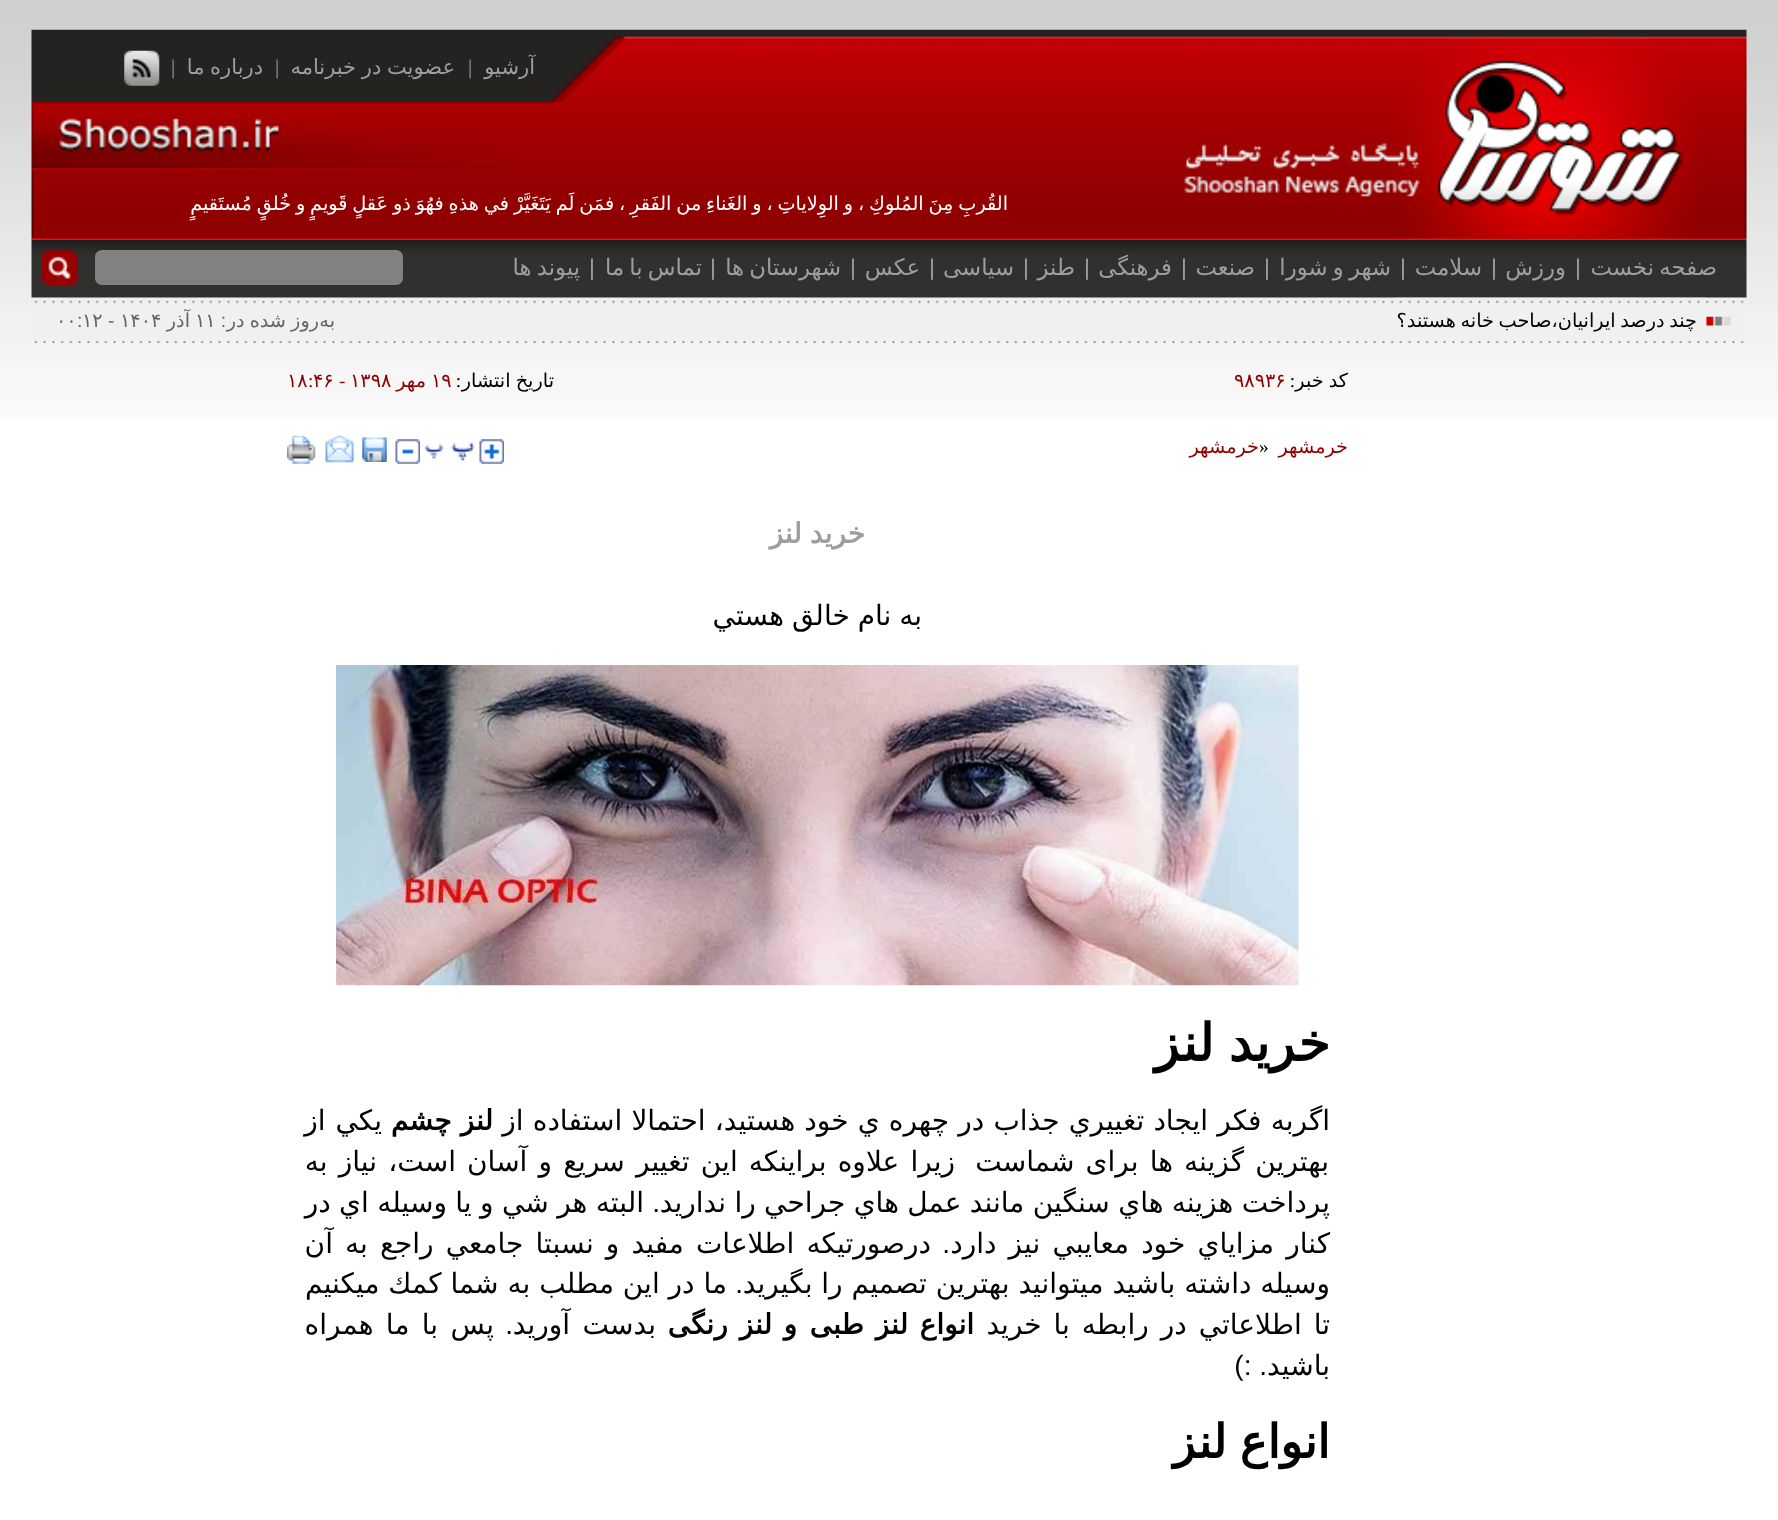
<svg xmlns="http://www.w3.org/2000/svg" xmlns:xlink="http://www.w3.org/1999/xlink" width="1778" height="1520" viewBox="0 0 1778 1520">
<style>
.cls-1{font:21px DejaVu Sans;direction:rtl;fill:#9e9e9e}
.cls-2{font:21px Liberation Serif;fill:#9e9e9e}
.cls-3{font:19.25px DejaVu Sans;direction:rtl;fill:#ffffff}
.cls-4{font:22.75px DejaVu Sans;direction:rtl;fill:#9e9e9e}
.cls-5{font:22.75px Liberation Sans;fill:#9e9e9e}
.cls-6{font:19.25px DejaVu Sans;direction:rtl;fill:#000000}
.cls-7{font:19.25px DejaVu Sans;direction:rtl;fill:#656565}
.cls-8{font:19.25px Liberation Sans;direction:rtl;fill:#656565}
.cls-9{font:19.25px DejaVu Sans;fill:#656565}
.cls-10{font:19.25px Liberation Sans;fill:#656565}
.cls-11{font:19.25px Liberation Serif;direction:rtl;fill:#000000}
.cls-12{font:19.25px DejaVu Sans;fill:#910000}
.cls-13{font:19.25px DejaVu Sans;direction:rtl;fill:#910000}
.cls-14{font:19.25px Liberation Serif;fill:#910000}
.cls-15{font:19.25px Liberation Serif;fill:#000000}
.cls-16{font:bold 28px DejaVu Sans;direction:rtl;fill:#9e9e9e}
.cls-17{font:28px DejaVu Sans;direction:rtl;fill:#000000}
.cls-18{font:bold 51.5px DejaVu Sans;direction:rtl;fill:#000000}
.cls-19{font:bold 28px DejaVu Sans;direction:rtl;fill:#000000}
.cls-20{font:28px Liberation Sans;direction:rtl;fill:#000000}
.cls-21{font:bold 46.5px DejaVu Sans;direction:rtl;fill:#000000}
</style>
<rect width="100%" height="100%" fill="#ffffff"/>
<image xlink:href="image0.png" x="0" y="0" width="1778" height="419"/>
<image xlink:href="image1.png" x="31" y="29" width="1716" height="211"/>
<image xlink:href="image2.png" x="124" y="50" width="36" height="36"/>
<image xlink:href="image3.png" x="31" y="239" width="1716" height="59"/>
<rect fill="#818181" x="95" y="250" width="308" height="35" rx="7"/>
<image xlink:href="image4.png" x="42" y="250" width="35" height="36"/>
<image xlink:href="image5.png" x="34" y="300" width="1710" height="43"/>
<image xlink:href="image6.png" x="1706" y="316" width="25" height="10"/>
<image xlink:href="image7.png" x="1396" y="297" width="311" height="29"/>
<image xlink:href="image8.png" x="479" y="439" width="25" height="25"/>
<image xlink:href="image9.png" x="425" y="442" width="50" height="19"/>
<image xlink:href="image10.png" x="395" y="439" width="25" height="25"/>
<image xlink:href="image11.png" x="362" y="437" width="25" height="25"/>
<image xlink:href="image12.png" x="325" y="435" width="29" height="28"/>
<image xlink:href="image13.png" x="287" y="435" width="29" height="29"/>
<image xlink:href="image14.png" x="336" y="665" width="963" height="321"/>
<text class="cls-1" x="535" y="74">آرشیو</text>
<text class="cls-2" x="468" y="74">|</text>
<text class="cls-1" x="455" y="74" word-spacing="-1">عضویت در خبرنامه</text>
<text class="cls-2" x="275" y="74">|</text>
<text class="cls-1" x="263" y="74" word-spacing="-1">درباره ما</text>
<text class="cls-2" x="171" y="74">|</text>
<text class="cls-3" x="1008" y="210" word-spacing="-1.25">القُربِ مِنَ المُلوكِ ، و الوِلاياتِ ، و الغَناءِ من الفَقرِ ، فمَن لَم يَتَغَيَّرْ في هذهِ فهُوَ ذو عَقلٍ قَويمٍ و خُلقٍ مُستَقيمٍ</text>
<text class="cls-4" x="1717" y="275" word-spacing="-2">صفحه نخست</text>
<text class="cls-5" x="1575" y="275">|</text>
<text class="cls-4" x="1566" y="275">ورزش</text>
<text class="cls-5" x="1491" y="275">|</text>
<text class="cls-4" x="1482" y="275">سلامت</text>
<text class="cls-5" x="1400" y="275">|</text>
<text class="cls-4" x="1391" y="275" word-spacing="-2">شهر و شورا</text>
<text class="cls-5" x="1264" y="275">|</text>
<text class="cls-4" x="1255" y="275">صنعت</text>
<text class="cls-5" x="1181" y="275">|</text>
<text class="cls-4" x="1172" y="275">فرهنگی</text>
<text class="cls-5" x="1084" y="275">|</text>
<text class="cls-4" x="1075" y="275">طنز</text>
<text class="cls-5" x="1023" y="275">|</text>
<text class="cls-4" x="1014" y="275">سیاسی</text>
<text class="cls-5" x="929" y="275">|</text>
<text class="cls-4" x="920" y="275">عکس</text>
<text class="cls-5" x="850" y="275">|</text>
<text class="cls-4" x="841" y="275" word-spacing="-2">شهرستان ها</text>
<text class="cls-5" x="710" y="275">|</text>
<text class="cls-4" x="702" y="275" word-spacing="-2">تماس با ما</text>
<text class="cls-5" x="589" y="275">|</text>
<text class="cls-4" x="580" y="275" word-spacing="-2">پیوند ها</text>
<text class="cls-6" x="1697" y="327" word-spacing="-1.5">چند درصد ايرانيان،صاحب خانه هستند؟</text>
<text class="cls-7" x="335" y="327">به</text>
<text class="cls-7" x="319" y="327" word-spacing="-1">روز شده در</text>
<text class="cls-8" x="226" y="327">:</text>
<text class="cls-9" x="195" y="327">۱۱</text>
<text class="cls-7" x="190" y="327">آذر</text>
<text class="cls-9" x="120" y="327">۱۴۰۴</text>
<text class="cls-10" x="108" y="327">-</text>
<text class="cls-9" x="82" y="327">۱۲</text>
<text class="cls-10" x="77" y="327">:</text>
<text class="cls-9" x="56" y="327">۰۰</text>
<text class="cls-6" x="1348" y="387" word-spacing="-1">کد خبر</text>
<text class="cls-11" x="1295" y="387">:</text>
<text class="cls-12" x="1234" y="387">۹۸۹۳۶</text>
<text class="cls-6" x="554" y="387" word-spacing="-1">تاریخ انتشار</text>
<text class="cls-11" x="461" y="387">:</text>
<text class="cls-12" x="431" y="387">۱۹</text>
<text class="cls-13" x="426" y="387">مهر</text>
<text class="cls-12" x="350" y="387">۱۳۹۸</text>
<text class="cls-14" x="339" y="387">-</text>
<text class="cls-12" x="313" y="387">۴۶</text>
<text class="cls-14" x="308" y="387">:</text>
<text class="cls-12" x="287" y="387">۱۸</text>
<text class="cls-13" x="1348" y="453">خرمشهر</text>
<text class="cls-15" x="1259" y="453">»</text>
<text class="cls-13" x="1259" y="453">خرمشهر</text>
<text class="cls-16" x="865" y="543" word-spacing="-1">خريد لنز</text>
<text class="cls-17" x="922" y="625" word-spacing="-1">به نام خالق هستي</text>
<text class="cls-18" x="1330" y="1061" word-spacing="-2">خريد لنز</text>
<text class="cls-17" x="1330" y="1130" word-spacing="0.25">اگربه فكر ايجاد تغييري جذاب در چهره ي خود هستيد، احتمالا استفاده از</text>
<text class="cls-19" x="493" y="1130">لنز چشم</text>
<text class="cls-17" x="382" y="1130" word-spacing="1">يكي از</text>
<text class="cls-17" x="1329" y="1171" word-spacing="2.25">بهترين گزينه ها برای شماست</text>
<text class="cls-17" x="955" y="1171" word-spacing="2.25">زيرا علاوه براينكه اين تغيير سريع و آسان است، نياز به</text>
<text class="cls-17" x="1330" y="1212" word-spacing="-0.5">پرداخت هزينه هاي سنگين مانند عمل هاي جراحي را نداريد</text>
<text class="cls-20" x="660" y="1212">.</text>
<text class="cls-17" x="644" y="1212" word-spacing="-0.5">البته هر شي و يا وسيله اي در</text>
<text class="cls-17" x="1330" y="1253" word-spacing="3.25">كنار مزاياي خود معايبي نيز دارد</text>
<text class="cls-20" x="950" y="1253">.</text>
<text class="cls-17" x="931" y="1253" word-spacing="3.25">درصورتيكه اطلاعات مفيد و نسبتا جامعي راجع به آن</text>
<text class="cls-17" x="1330" y="1293">وسيله داشته باشيد ميتوانيد بهترين تصميم را بگيريد</text>
<text class="cls-20" x="743" y="1293">.</text>
<text class="cls-17" x="727" y="1293">ما در اين مطلب به شما كمك ميكنيم</text>
<text class="cls-17" x="1330" y="1334" word-spacing="3">تا اطلاعاتي در رابطه با خريد</text>
<text class="cls-19" x="974" y="1334">انواع</text>
<text class="cls-19" x="908" y="1334" word-spacing="3">لنز طبی</text>
<text class="cls-19" x="797" y="1334">و</text>
<text class="cls-19" x="772" y="1334" word-spacing="3">لنز رنگی</text>
<text class="cls-17" x="656" y="1334" word-spacing="3.5">بدست آوريد</text>
<text class="cls-20" x="513" y="1334">.</text>
<text class="cls-17" x="494" y="1334" word-spacing="3.5">پس با ما همراه</text>
<text class="cls-17" x="1330" y="1375">باشيد</text>
<text class="cls-20" x="1267" y="1375">. :)</text>
<text class="cls-21" x="1330" y="1458" word-spacing="-2">انواع لنز</text>
</svg>
